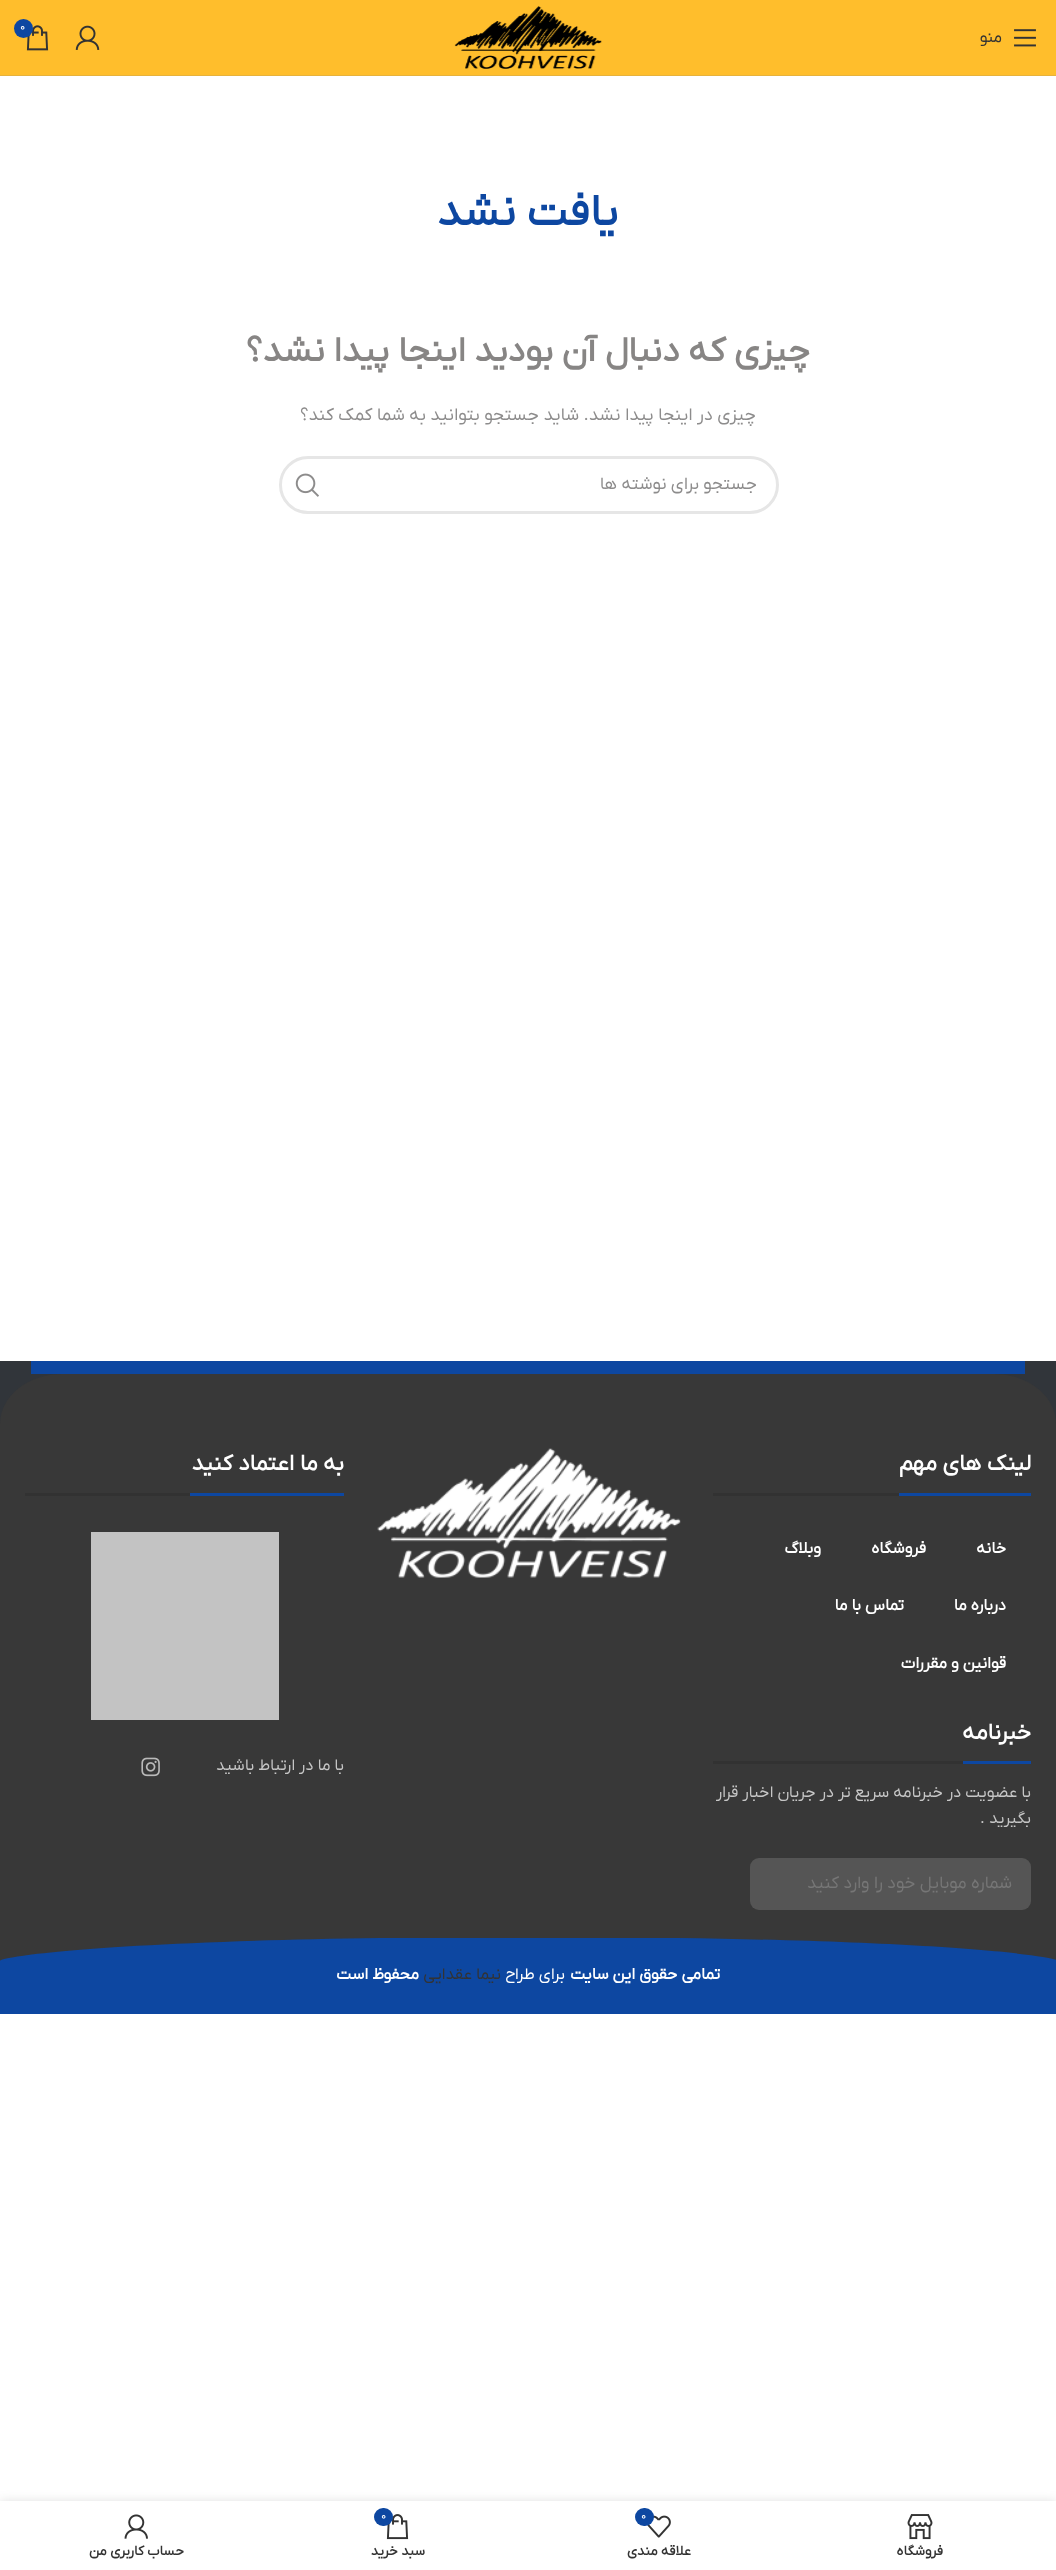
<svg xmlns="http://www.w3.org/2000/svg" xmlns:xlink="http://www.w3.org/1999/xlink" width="1056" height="2570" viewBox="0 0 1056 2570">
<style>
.cls-1{font:11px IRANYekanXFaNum;fill:#ffffff}
.cls-2{font:16.25px IRANYekanXFaNum;direction:rtl;fill:#333333}
.cls-3{font:bold 44.5px IRANYekanXFaNum;direction:rtl;fill:#0d47a1}
.cls-4{font:bold 35px IRANYekanXFaNum;direction:rtl;fill:#878584}
.cls-5{font:17.9px IRANYekanXFaNum;direction:rtl;fill:#8d8c8c}
.cls-6{font:17.5px IRANYekanXFaNum;direction:rtl;fill:#8d8c8c}
.cls-7{font:bold 22.5px IRANYekanXFaNum;direction:rtl;fill:#ffffff}
.cls-8{font:bold 16.25px IRANYekanXFaNum;direction:rtl;fill:#ffffff}
.cls-9{font:16.25px IRANYekanXFaNum;direction:rtl;fill:#c6c6c6}
.cls-10{font:17.5px IRANYekanXFaNum;direction:rtl;fill:#767676}
.cls-11{font:16.25px IRANYekanXFaNum;direction:rtl;fill:#ffffff}
.cls-12{font:bold 13.75px IRANYekanXFaNum;direction:rtl;fill:#333333}
</style>
<defs>
<clipPath id="clip1"><rect x="0" y="1938" width="1056" height="23"/></clipPath>
</defs>
<rect width="100%" height="100%" fill="#ffffff"/>
<rect fill="#ffbe2c" x="0" y="0" width="1056" height="75"/>
<rect fill="#e6b23d" x="0" y="75" width="1056" height="1"/>
<image xlink:href="image0.png" x="454" y="6" width="148" height="63"/>
<image xlink:href="image1.png" x="75" y="25" width="25" height="25"/>
<image xlink:href="image2.png" x="26" y="25" width="23" height="26"/>
<circle fill="#0d47a1" cx="23.5" cy="28.5" r="9.5"/>
<image xlink:href="image3.png" x="1014" y="29" width="22" height="18"/>
<rect fill="none" stroke="#e6e6e6" stroke-width="3" x="280.5" y="457.5" width="497" height="55" rx="27.5"/>
<image xlink:href="image4.png" x="295" y="473" width="24" height="24"/>
<rect fill="#31353a" x="0" y="1361" width="1056" height="63"/>
<path fill="#383838" d="M62 1374H994C1028 1374 1056 1396 1056 1424V1960H0V1424C0 1396 28 1374 62 1374Z"/>
<rect fill="#0d47a1" x="31" y="1361" width="994" height="13"/>
<rect fill="#323232" x="713" y="1493" width="186" height="3"/>
<rect fill="#0d47a1" x="899" y="1493" width="132" height="3"/>
<rect fill="#323232" x="713" y="1761" width="250" height="3"/>
<rect fill="#0d47a1" x="963" y="1761" width="68" height="3"/>
<rect fill="#555555" x="750" y="1858" width="281" height="52" rx="9"/>
<image xlink:href="image5.png" x="377" y="1448" width="304" height="130"/>
<rect fill="#323232" x="25" y="1493" width="165" height="3"/>
<rect fill="#0d47a1" x="190" y="1493" width="154" height="3"/>
<rect fill="#c3c3c3" x="91" y="1532" width="188" height="188"/>
<image xlink:href="image6.png" x="141" y="1757" width="19" height="20"/>
<rect fill="#0d47a1" x="0" y="1938" width="1056" height="76"/>
<g clip-path="url(#clip1)">
<path fill="#383838" d="M529 1937C924 1937 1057 1956 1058 1961V1936H0V1961C0 1956 134 1937 529 1937Z"/>
</g>
<rect fill="#000000" fill-opacity="0.12" filter="blur(5.5px)" x="0" y="2501" width="1056" height="69"/>
<rect fill="#ffffff" x="0" y="2501" width="1056" height="69"/>
<image xlink:href="image7.png" x="907" y="2514" width="26" height="26"/>
<image xlink:href="image8.png" x="647" y="2515" width="24" height="23"/>
<rect fill="#0d47a1" x="635" y="2508" width="19" height="18" rx="9"/>
<image xlink:href="image9.png" x="386" y="2514" width="23" height="26"/>
<rect fill="#0d47a1" x="374" y="2508" width="19" height="18" rx="9"/>
<image xlink:href="image10.png" x="124" y="2514" width="24" height="25"/>
<text class="cls-1" x="20" y="30">0</text>
<text class="cls-2" x="1002" y="42">منو</text>
<text class="cls-3" x="618" y="225">یافت نشد</text>
<text class="cls-4" x="810" y="361">چیزی که دنبال آن بودید اینجا پیدا نشد؟</text>
<text class="cls-5" x="756" y="420">چیزی در اینجا پیدا نشد. شاید جستجو بتوانید به شما کمک کند؟</text>
<text class="cls-6" x="757" y="489">جستجو برای نوشته ها</text>
<text class="cls-7" x="1031" y="1470">لینک های مهم</text>
<text class="cls-8" x="1006" y="1553">خانه</text>
<text class="cls-8" x="926" y="1553">فروشگاه</text>
<text class="cls-8" x="821" y="1553">وبلاگ</text>
<text class="cls-8" x="1006" y="1610">درباره ما</text>
<text class="cls-8" x="904" y="1610">تماس با ما</text>
<text class="cls-8" x="1006" y="1668">قوانین و مقررات</text>
<text class="cls-7" x="1031" y="1739">خبرنامه</text>
<text class="cls-9"><tspan x="1031" y="1797">با عضویت در خبرنامه سریع تر در جریان اخبار قرار</tspan><tspan x="1031" y="1823">بگیرید .</tspan></text>
<text class="cls-10" x="1012" y="1888">شماره موبایل خود را وارد کنید</text>
<text class="cls-7" x="344" y="1470">به ما اعتماد کنید</text>
<text class="cls-9" x="344" y="1770">با ما در ارتباط باشید</text>
<text class="cls-8" x="720" y="1979">تمامی حقوق این سایت</text>
<text class="cls-11" x="565" y="1979">برای طراح</text>
<text class="cls-2" x="501" y="1979">نیما عقدایی</text>
<text class="cls-8" x="419" y="1979">محفوظ است</text>
<text class="cls-12" x="943" y="2555">فروشگاه</text>
<text class="cls-1" x="641" y="2519">0</text>
<text class="cls-12" x="691" y="2555">علاقه مندی</text>
<text class="cls-1" x="381" y="2519">0</text>
<text class="cls-12" x="425" y="2555">سبد خرید</text>
<text class="cls-12" x="184" y="2555">حساب کاربری من</text>
</svg>
